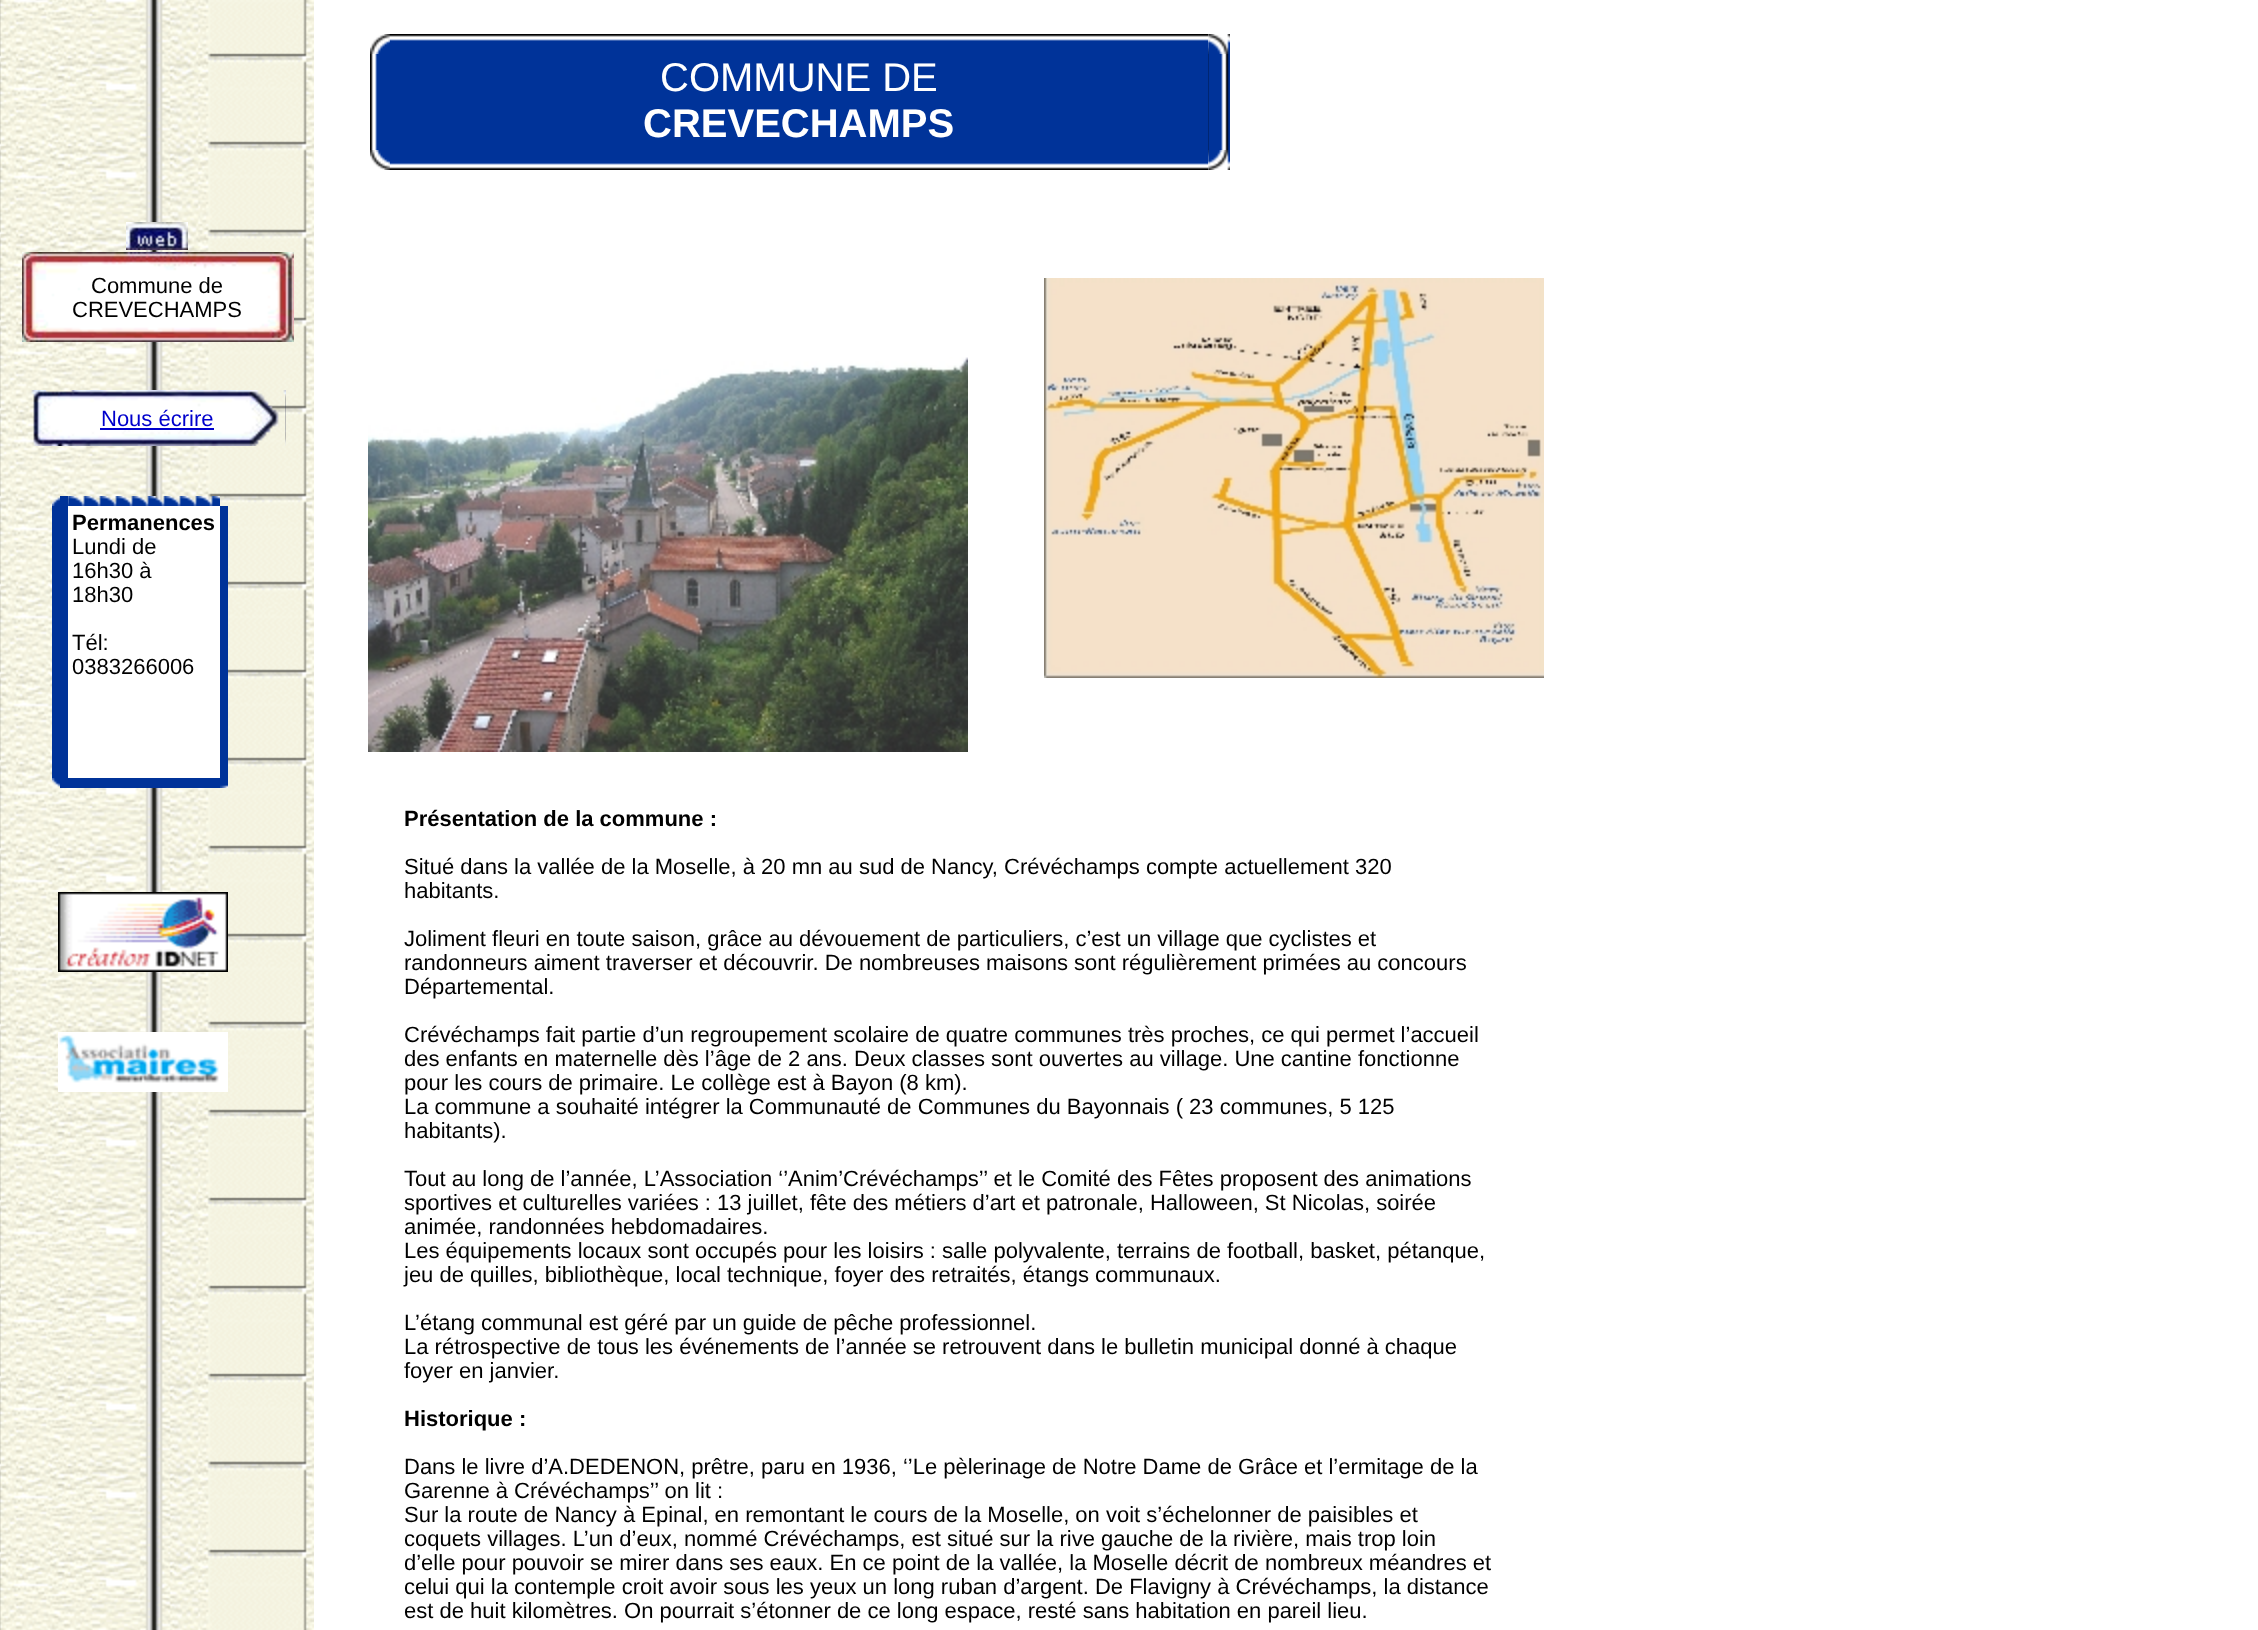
<svg xmlns="http://www.w3.org/2000/svg" xmlns:xlink="http://www.w3.org/1999/xlink" width="2258" height="1630" viewBox="0 0 2258 1630">
<style>
.cls-1{font:22px Liberation Sans;fill:#000000}
.cls-2{font:22px Liberation Sans;fill:#0000cc}
.cls-3{font:bold 22px Liberation Sans;fill:#000000}
.cls-4{font:40px Liberation Sans;fill:#ffffff}
.cls-5{font:bold 40px Liberation Sans;fill:#ffffff}
</style>
<rect width="100%" height="100%" fill="#ffffff"/>
<image xlink:href="image0.png" x="0" y="0" width="314" height="1630"/>
<image xlink:href="image1.png" x="126" y="222" width="62" height="28"/>
<image xlink:href="image2.png" x="22" y="252" width="272" height="90"/>
<image xlink:href="image3.png" x="31" y="390" width="255" height="56"/>
<rect fill="#0000cc" x="100" y="428" width="114" height="2"/>
<image xlink:href="image4.png" x="52" y="497" width="8" height="9"/>
<rect fill="#003399" x="60" y="496" width="8" height="292"/>
<image xlink:href="image5.png" x="68" y="496" width="152" height="10"/>
<rect fill="#003399" x="52" y="506" width="8" height="272"/>
<rect fill="#ffffff" x="68" y="506" width="152" height="272"/>
<rect fill="#003399" x="220" y="506" width="8" height="272"/>
<image xlink:href="image6.png" x="52" y="778" width="8" height="9"/>
<rect fill="#003399" x="68" y="778" width="152" height="10"/>
<image xlink:href="image7.png" x="220" y="778" width="8" height="10"/>
<image xlink:href="image8.png" x="58" y="892" width="170" height="80"/>
<image xlink:href="image9.png" x="58" y="1032" width="170" height="60"/>
<image xlink:href="image10.png" x="370" y="34" width="20" height="20"/>
<image xlink:href="image11.png" x="390" y="34" width="818" height="20"/>
<image xlink:href="image12.png" x="1208" y="34" width="22" height="20"/>
<image xlink:href="image13.png" x="370" y="54" width="20" height="96"/>
<rect fill="#003399" x="390" y="54" width="818" height="96"/>
<image xlink:href="image14.png" x="1208" y="54" width="22" height="96"/>
<image xlink:href="image15.png" x="370" y="150" width="20" height="20"/>
<image xlink:href="image16.png" x="390" y="150" width="818" height="20"/>
<image xlink:href="image17.png" x="1208" y="150" width="22" height="20"/>
<image xlink:href="image18.png" x="368" y="357" width="600" height="395"/>
<image xlink:href="image19.png" x="1044" y="278" width="500" height="400"/>
<text class="cls-1" x="91" y="293">Commune de</text>
<text class="cls-1" x="72" y="317">CREVECHAMPS</text>
<text class="cls-2" x="101" y="426">Nous écrire</text>
<text class="cls-3" x="72" y="530">Permanences</text>
<text class="cls-1"><tspan x="72" y="554">Lundi de</tspan><tspan x="72" y="578">16h30 à</tspan><tspan x="72" y="602">18h30</tspan></text>
<text class="cls-1"><tspan x="72" y="650">Tél:</tspan><tspan x="72" y="674">0383266006</tspan></text>
<text class="cls-4" x="660" y="91">COMMUNE DE</text>
<text class="cls-5" x="643" y="137">CREVECHAMPS</text>
<text class="cls-3" x="404" y="826">Présentation de la commune :</text>
<text class="cls-1"><tspan x="404" y="874">Situé dans la vallée de la Moselle, à 20 mn au sud de Nancy, Crévéchamps compte actuellement 320</tspan><tspan x="404" y="898">habitants.</tspan></text>
<text class="cls-1"><tspan x="404" y="946">Joliment fleuri en toute saison, grâce au dévouement de particuliers, c’est un village que cyclistes et</tspan><tspan x="404" y="970">randonneurs aiment traverser et découvrir. De nombreuses maisons sont régulièrement primées au concours</tspan><tspan x="404" y="994">Départemental.</tspan></text>
<text class="cls-1"><tspan x="404" y="1042">Crévéchamps fait partie d’un regroupement scolaire de quatre communes très proches, ce qui permet l’accueil</tspan><tspan x="404" y="1066">des enfants en maternelle dès l’âge de 2 ans. Deux classes sont ouvertes au village. Une cantine fonctionne</tspan><tspan x="404" y="1090">pour les cours de primaire. Le collège est à Bayon (8 km).</tspan><tspan x="404" y="1114">La commune a souhaité intégrer la Communauté de Communes du Bayonnais ( 23 communes, 5 125</tspan><tspan x="404" y="1138">habitants).</tspan></text>
<text class="cls-1"><tspan x="404" y="1186">Tout au long de l’année, L’Association ‘’Anim’Crévéchamps’’ et le Comité des Fêtes proposent des animations</tspan><tspan x="404" y="1210">sportives et culturelles variées : 13 juillet, fête des métiers d’art et patronale, Halloween, St Nicolas, soirée</tspan><tspan x="404" y="1234">animée, randonnées hebdomadaires.</tspan><tspan x="404" y="1258">Les équipements locaux sont occupés pour les loisirs : salle polyvalente, terrains de football, basket, pétanque,</tspan><tspan x="404" y="1282">jeu de quilles, bibliothèque, local technique, foyer des retraités, étangs communaux.</tspan></text>
<text class="cls-1"><tspan x="404" y="1330">L’étang communal est géré par un guide de pêche professionnel.</tspan><tspan x="404" y="1354">La rétrospective de tous les événements de l’année se retrouvent dans le bulletin municipal donné à chaque</tspan><tspan x="404" y="1378">foyer en janvier.</tspan></text>
<text class="cls-3" x="404" y="1426">Historique :</text>
<text class="cls-1"><tspan x="404" y="1474">Dans le livre d’A.DEDENON, prêtre, paru en 1936, ‘’Le pèlerinage de Notre Dame de Grâce et l’ermitage de la</tspan><tspan x="404" y="1498">Garenne à Crévéchamps’’ on lit :</tspan><tspan x="404" y="1522">Sur la route de Nancy à Epinal, en remontant le cours de la Moselle, on voit s’échelonner de paisibles et</tspan><tspan x="404" y="1546">coquets villages. L’un d’eux, nommé Crévéchamps, est situé sur la rive gauche de la rivière, mais trop loin</tspan><tspan x="404" y="1570">d’elle pour pouvoir se mirer dans ses eaux. En ce point de la vallée, la Moselle décrit de nombreux méandres et</tspan><tspan x="404" y="1594">celui qui la contemple croit avoir sous les yeux un long ruban d’argent. De Flavigny à Crévéchamps, la distance</tspan><tspan x="404" y="1618">est de huit kilomètres. On pourrait s’étonner de ce long espace, resté sans habitation en pareil lieu.</tspan></text>
</svg>
